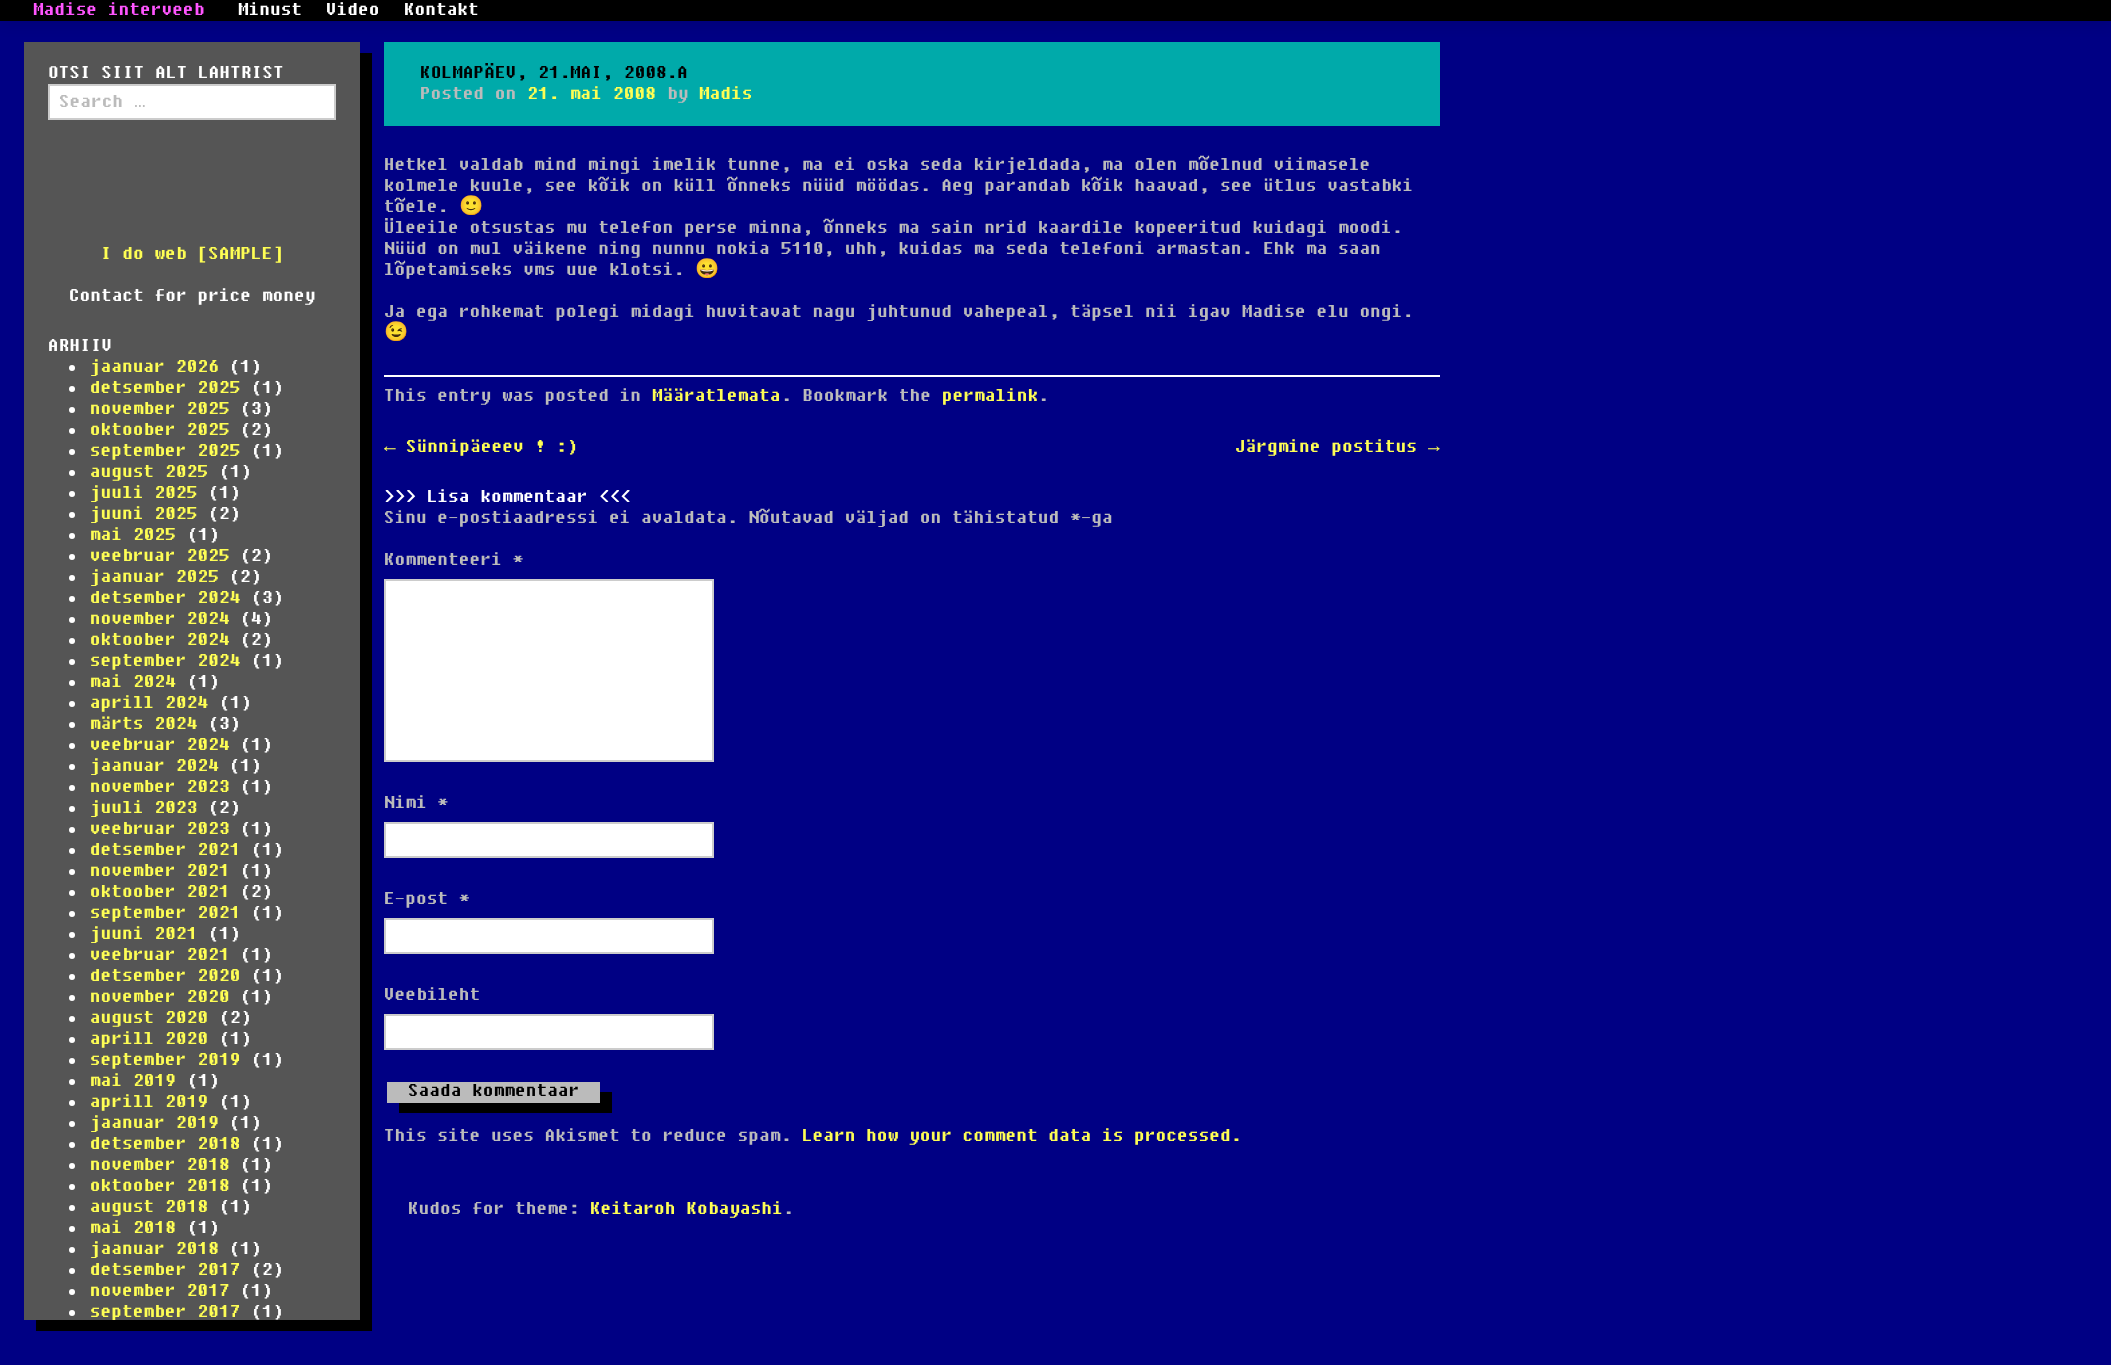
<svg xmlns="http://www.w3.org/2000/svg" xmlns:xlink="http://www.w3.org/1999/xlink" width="2111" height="1365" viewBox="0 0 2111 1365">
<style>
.cls-1{font:600 19.5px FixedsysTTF;fill:#ff55ff}
.cls-2{font:600 19.5px FixedsysTTF;fill:#ffffff}
.cls-3{font:600 19.5px FixedsysTTF;fill:#bbbbbb}
.cls-4{font:19.5px Liberation Mono;fill:#bbbbbb}
.cls-5{font:600 19.5px FixedsysTTF;fill:#fefe54}
.cls-6{font:600 19.5px FixedsysTTF;fill:#000000}
.cls-7{font:19.5px Noto Color Emoji;fill:#bbbbbb}
.cls-8{font:19.5px Liberation Mono;fill:#fefe54}
</style>
<defs>
<clipPath id="clip1"><rect x="24" y="42" width="336" height="1278"/></clipPath>
</defs>
<rect width="100%" height="100%" fill="#000084"/>
<path fill="#000000" d="M36 1320V1331H372V53H360V1320Z"/>
<rect fill="#555555" x="24" y="42" width="336" height="1278"/>
<rect fill="#00aaaa" x="384" y="42" width="1056" height="84"/>
<rect fill="#000000" fill-opacity="0.1" filter="blur(7.5px)" x="0" y="2" width="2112" height="21"/>
<rect fill="#000000" x="0" y="0" width="2111" height="21"/>
<rect fill="#ffffff" stroke="#cccccc" stroke-width="2" x="49" y="85" width="286" height="34"/>
<circle fill="#ffffff" cx="72" cy="368" r="3"/>
<circle fill="#ffffff" cx="72" cy="389" r="3"/>
<circle fill="#ffffff" cx="72" cy="410" r="3"/>
<circle fill="#ffffff" cx="72" cy="431" r="3"/>
<circle fill="#ffffff" cx="72" cy="452" r="3"/>
<circle fill="#ffffff" cx="72" cy="473" r="3"/>
<circle fill="#ffffff" cx="72" cy="494" r="3"/>
<circle fill="#ffffff" cx="72" cy="515" r="3"/>
<circle fill="#ffffff" cx="72" cy="536" r="3"/>
<circle fill="#ffffff" cx="72" cy="557" r="3"/>
<circle fill="#ffffff" cx="72" cy="578" r="3"/>
<circle fill="#ffffff" cx="72" cy="599" r="3"/>
<circle fill="#ffffff" cx="72" cy="620" r="3"/>
<circle fill="#ffffff" cx="72" cy="641" r="3"/>
<circle fill="#ffffff" cx="72" cy="662" r="3"/>
<circle fill="#ffffff" cx="72" cy="683" r="3"/>
<circle fill="#ffffff" cx="72" cy="704" r="3"/>
<circle fill="#ffffff" cx="72" cy="725" r="3"/>
<circle fill="#ffffff" cx="72" cy="746" r="3"/>
<circle fill="#ffffff" cx="72" cy="767" r="3"/>
<circle fill="#ffffff" cx="72" cy="788" r="3"/>
<circle fill="#ffffff" cx="72" cy="809" r="3"/>
<circle fill="#ffffff" cx="72" cy="830" r="3"/>
<circle fill="#ffffff" cx="72" cy="851" r="3"/>
<circle fill="#ffffff" cx="72" cy="872" r="3"/>
<circle fill="#ffffff" cx="72" cy="893" r="3"/>
<circle fill="#ffffff" cx="72" cy="914" r="3"/>
<circle fill="#ffffff" cx="72" cy="935" r="3"/>
<circle fill="#ffffff" cx="72" cy="956" r="3"/>
<circle fill="#ffffff" cx="72" cy="977" r="3"/>
<circle fill="#ffffff" cx="72" cy="998" r="3"/>
<circle fill="#ffffff" cx="72" cy="1019" r="3"/>
<circle fill="#ffffff" cx="72" cy="1040" r="3"/>
<circle fill="#ffffff" cx="72" cy="1061" r="3"/>
<circle fill="#ffffff" cx="72" cy="1082" r="3"/>
<circle fill="#ffffff" cx="72" cy="1103" r="3"/>
<circle fill="#ffffff" cx="72" cy="1124" r="3"/>
<circle fill="#ffffff" cx="72" cy="1145" r="3"/>
<circle fill="#ffffff" cx="72" cy="1166" r="3"/>
<circle fill="#ffffff" cx="72" cy="1187" r="3"/>
<circle fill="#ffffff" cx="72" cy="1208" r="3"/>
<circle fill="#ffffff" cx="72" cy="1229" r="3"/>
<circle fill="#ffffff" cx="72" cy="1250" r="3"/>
<circle fill="#ffffff" cx="72" cy="1271" r="3"/>
<circle fill="#ffffff" cx="72" cy="1292" r="3"/>
<circle fill="#ffffff" cx="72" cy="1313" r="3"/>
<rect fill="#ffffff" x="384" y="375" width="1056" height="2"/>
<rect fill="#ffffff" stroke="#cccccc" stroke-width="2" x="385" y="580" width="328" height="181"/>
<rect fill="#ffffff" stroke="#cccccc" stroke-width="2" x="385" y="823" width="328" height="34"/>
<rect fill="#ffffff" stroke="#cccccc" stroke-width="2" x="385" y="919" width="328" height="34"/>
<rect fill="#ffffff" stroke="#cccccc" stroke-width="2" x="385" y="1015" width="328" height="34"/>
<path fill="#000000" d="M399 1102V1113H612V1092H600V1102Z"/>
<rect fill="#bbbbbb" x="387" y="1082" width="213" height="21"/>
<text class="cls-1" x="33" y="15">Madise interveeb</text>
<text class="cls-2" x="238" y="15">Minust</text>
<text class="cls-2" x="326" y="15">Video</text>
<text class="cls-2" x="404" y="15">Kontakt</text>
<text class="cls-2" x="48" y="78">OTSI SIIT ALT LAHTRIST</text>
<text class="cls-3" x="59" y="107">Search</text>
<text class="cls-4" x="134" y="107">…</text>
<text class="cls-5" x="101" y="259">I do web [SAMPLE]</text>
<text class="cls-2" x="69" y="301">Contact for price money</text>
<text class="cls-2" x="48" y="351">ARHIIV</text>
<text class="cls-5" x="90" y="372">jaanuar 2026</text>
<text class="cls-2" x="229" y="372">(1)</text>
<text class="cls-5" x="90" y="393">detsember 2025</text>
<text class="cls-2" x="251" y="393">(1)</text>
<text class="cls-5" x="90" y="414">november 2025</text>
<text class="cls-2" x="240" y="414">(3)</text>
<text class="cls-5" x="90" y="435">oktoober 2025</text>
<text class="cls-2" x="240" y="435">(2)</text>
<text class="cls-5" x="90" y="456">september 2025</text>
<text class="cls-2" x="251" y="456">(1)</text>
<text class="cls-5" x="90" y="477">august 2025</text>
<text class="cls-2" x="219" y="477">(1)</text>
<text class="cls-5" x="90" y="498">juuli 2025</text>
<text class="cls-2" x="208" y="498">(1)</text>
<text class="cls-5" x="90" y="519">juuni 2025</text>
<text class="cls-2" x="208" y="519">(2)</text>
<text class="cls-5" x="90" y="540">mai 2025</text>
<text class="cls-2" x="187" y="540">(1)</text>
<text class="cls-5" x="90" y="561">veebruar 2025</text>
<text class="cls-2" x="240" y="561">(2)</text>
<text class="cls-5" x="90" y="582">jaanuar 2025</text>
<text class="cls-2" x="229" y="582">(2)</text>
<text class="cls-5" x="90" y="603">detsember 2024</text>
<text class="cls-2" x="251" y="603">(3)</text>
<text class="cls-5" x="90" y="624">november 2024</text>
<text class="cls-2" x="240" y="624">(4)</text>
<text class="cls-5" x="90" y="645">oktoober 2024</text>
<text class="cls-2" x="240" y="645">(2)</text>
<text class="cls-5" x="90" y="666">september 2024</text>
<text class="cls-2" x="251" y="666">(1)</text>
<text class="cls-5" x="90" y="687">mai 2024</text>
<text class="cls-2" x="187" y="687">(1)</text>
<text class="cls-5" x="90" y="708">aprill 2024</text>
<text class="cls-2" x="219" y="708">(1)</text>
<text class="cls-5" x="90" y="729">märts 2024</text>
<text class="cls-2" x="208" y="729">(3)</text>
<text class="cls-5" x="90" y="750">veebruar 2024</text>
<text class="cls-2" x="240" y="750">(1)</text>
<text class="cls-5" x="90" y="771">jaanuar 2024</text>
<text class="cls-2" x="229" y="771">(1)</text>
<text class="cls-5" x="90" y="792">november 2023</text>
<text class="cls-2" x="240" y="792">(1)</text>
<text class="cls-5" x="90" y="813">juuli 2023</text>
<text class="cls-2" x="208" y="813">(2)</text>
<text class="cls-5" x="90" y="834">veebruar 2023</text>
<text class="cls-2" x="240" y="834">(1)</text>
<text class="cls-5" x="90" y="855">detsember 2021</text>
<text class="cls-2" x="251" y="855">(1)</text>
<text class="cls-5" x="90" y="876">november 2021</text>
<text class="cls-2" x="240" y="876">(1)</text>
<text class="cls-5" x="90" y="897">oktoober 2021</text>
<text class="cls-2" x="240" y="897">(2)</text>
<text class="cls-5" x="90" y="918">september 2021</text>
<text class="cls-2" x="251" y="918">(1)</text>
<text class="cls-5" x="90" y="939">juuni 2021</text>
<text class="cls-2" x="208" y="939">(1)</text>
<text class="cls-5" x="90" y="960">veebruar 2021</text>
<text class="cls-2" x="240" y="960">(1)</text>
<text class="cls-5" x="90" y="981">detsember 2020</text>
<text class="cls-2" x="251" y="981">(1)</text>
<text class="cls-5" x="90" y="1002">november 2020</text>
<text class="cls-2" x="240" y="1002">(1)</text>
<text class="cls-5" x="90" y="1023">august 2020</text>
<text class="cls-2" x="219" y="1023">(2)</text>
<text class="cls-5" x="90" y="1044">aprill 2020</text>
<text class="cls-2" x="219" y="1044">(1)</text>
<text class="cls-5" x="90" y="1065">september 2019</text>
<text class="cls-2" x="251" y="1065">(1)</text>
<text class="cls-5" x="90" y="1086">mai 2019</text>
<text class="cls-2" x="187" y="1086">(1)</text>
<text class="cls-5" x="90" y="1107">aprill 2019</text>
<text class="cls-2" x="219" y="1107">(1)</text>
<text class="cls-5" x="90" y="1128">jaanuar 2019</text>
<text class="cls-2" x="229" y="1128">(1)</text>
<text class="cls-5" x="90" y="1149">detsember 2018</text>
<text class="cls-2" x="251" y="1149">(1)</text>
<text class="cls-5" x="90" y="1170">november 2018</text>
<text class="cls-2" x="240" y="1170">(1)</text>
<text class="cls-5" x="90" y="1191">oktoober 2018</text>
<text class="cls-2" x="240" y="1191">(1)</text>
<text class="cls-5" x="90" y="1212">august 2018</text>
<text class="cls-2" x="219" y="1212">(1)</text>
<text class="cls-5" x="90" y="1233">mai 2018</text>
<text class="cls-2" x="187" y="1233">(1)</text>
<text class="cls-5" x="90" y="1254">jaanuar 2018</text>
<text class="cls-2" x="229" y="1254">(1)</text>
<text class="cls-5" x="90" y="1275">detsember 2017</text>
<text class="cls-2" x="251" y="1275">(2)</text>
<text class="cls-5" x="90" y="1296">november 2017</text>
<text class="cls-2" x="240" y="1296">(1)</text>
<g clip-path="url(#clip1)">
<text class="cls-5" x="90" y="1317">september 2017</text>
</g>
<text class="cls-2" x="251" y="1317">(1)</text>
<text class="cls-6" x="420" y="78">KOLMAPÄEV, 21.MAI, 2008.A</text>
<text class="cls-3" x="420" y="99">Posted on</text>
<text class="cls-5" x="527" y="99">21. mai 2008</text>
<text class="cls-3" x="667" y="99">by</text>
<text class="cls-5" x="699" y="99">Madis</text>
<text class="cls-3"><tspan x="384" y="170">Hetkel valdab mind mingi imelik tunne, ma ei oska seda kirjeldada, ma olen mõelnud viimasele</tspan><tspan x="384" y="191">kolmele kuule, see kõik on küll õnneks nüüd möödas. Aeg parandab kõik haavad, see ütlus vastabki</tspan><tspan x="384" y="212">tõele.</tspan></text>
<text class="cls-7" x="459" y="212">🙂</text>
<text class="cls-3"><tspan x="384" y="233">Üleeile otsustas mu telefon perse minna, õnneks ma sain nrid kaardile kopeeritud kuidagi moodi.</tspan><tspan x="384" y="254">Nüüd on mul väikene ning nunnu nokia 5110, uhh, kuidas ma seda telefoni armastan. Ehk ma saan</tspan><tspan x="384" y="275">lõpetamiseks vms uue klotsi.</tspan></text>
<text class="cls-7" x="695" y="275">😀</text>
<text class="cls-3" x="384" y="317">Ja ega rohkemat polegi midagi huvitavat nagu juhtunud vahepeal, täpsel nii igav Madise elu ongi.</text>
<text class="cls-7" x="384" y="338">😉</text>
<text class="cls-3" x="384" y="401">This entry was posted in</text>
<text class="cls-5" x="652" y="401">Määratlemata</text>
<text class="cls-3" x="781" y="401">. Bookmark the</text>
<text class="cls-5" x="942" y="401">permalink</text>
<text class="cls-3" x="1038" y="401">.</text>
<text class="cls-8" x="384" y="452">←</text>
<text class="cls-5" x="406" y="452">Sünnipäeeev ! :)</text>
<text class="cls-5" x="1235" y="452">Järgmine postitus</text>
<text class="cls-8" x="1428" y="452">→</text>
<text class="cls-2" x="384" y="502">&gt;&gt;&gt; Lisa kommentaar &lt;&lt;&lt;</text>
<text class="cls-3" x="384" y="523">Sinu e-postiaadressi ei avaldata. Nõutavad väljad on tähistatud *-ga</text>
<text class="cls-3" x="384" y="565">Kommenteeri *</text>
<text class="cls-3" x="384" y="808">Nimi *</text>
<text class="cls-3" x="384" y="904">E-post *</text>
<text class="cls-3" x="384" y="1000">Veebileht</text>
<text class="cls-6" x="408" y="1096">Saada kommentaar</text>
<text class="cls-3" x="384" y="1141">This site uses Akismet to reduce spam.</text>
<text class="cls-5" x="802" y="1141">Learn how your comment data is processed.</text>
<text class="cls-3" x="408" y="1214">Kudos for theme:</text>
<text class="cls-5" x="590" y="1214">Keitaroh Kobayashi</text>
<text class="cls-3" x="783" y="1214">.</text>
</svg>
